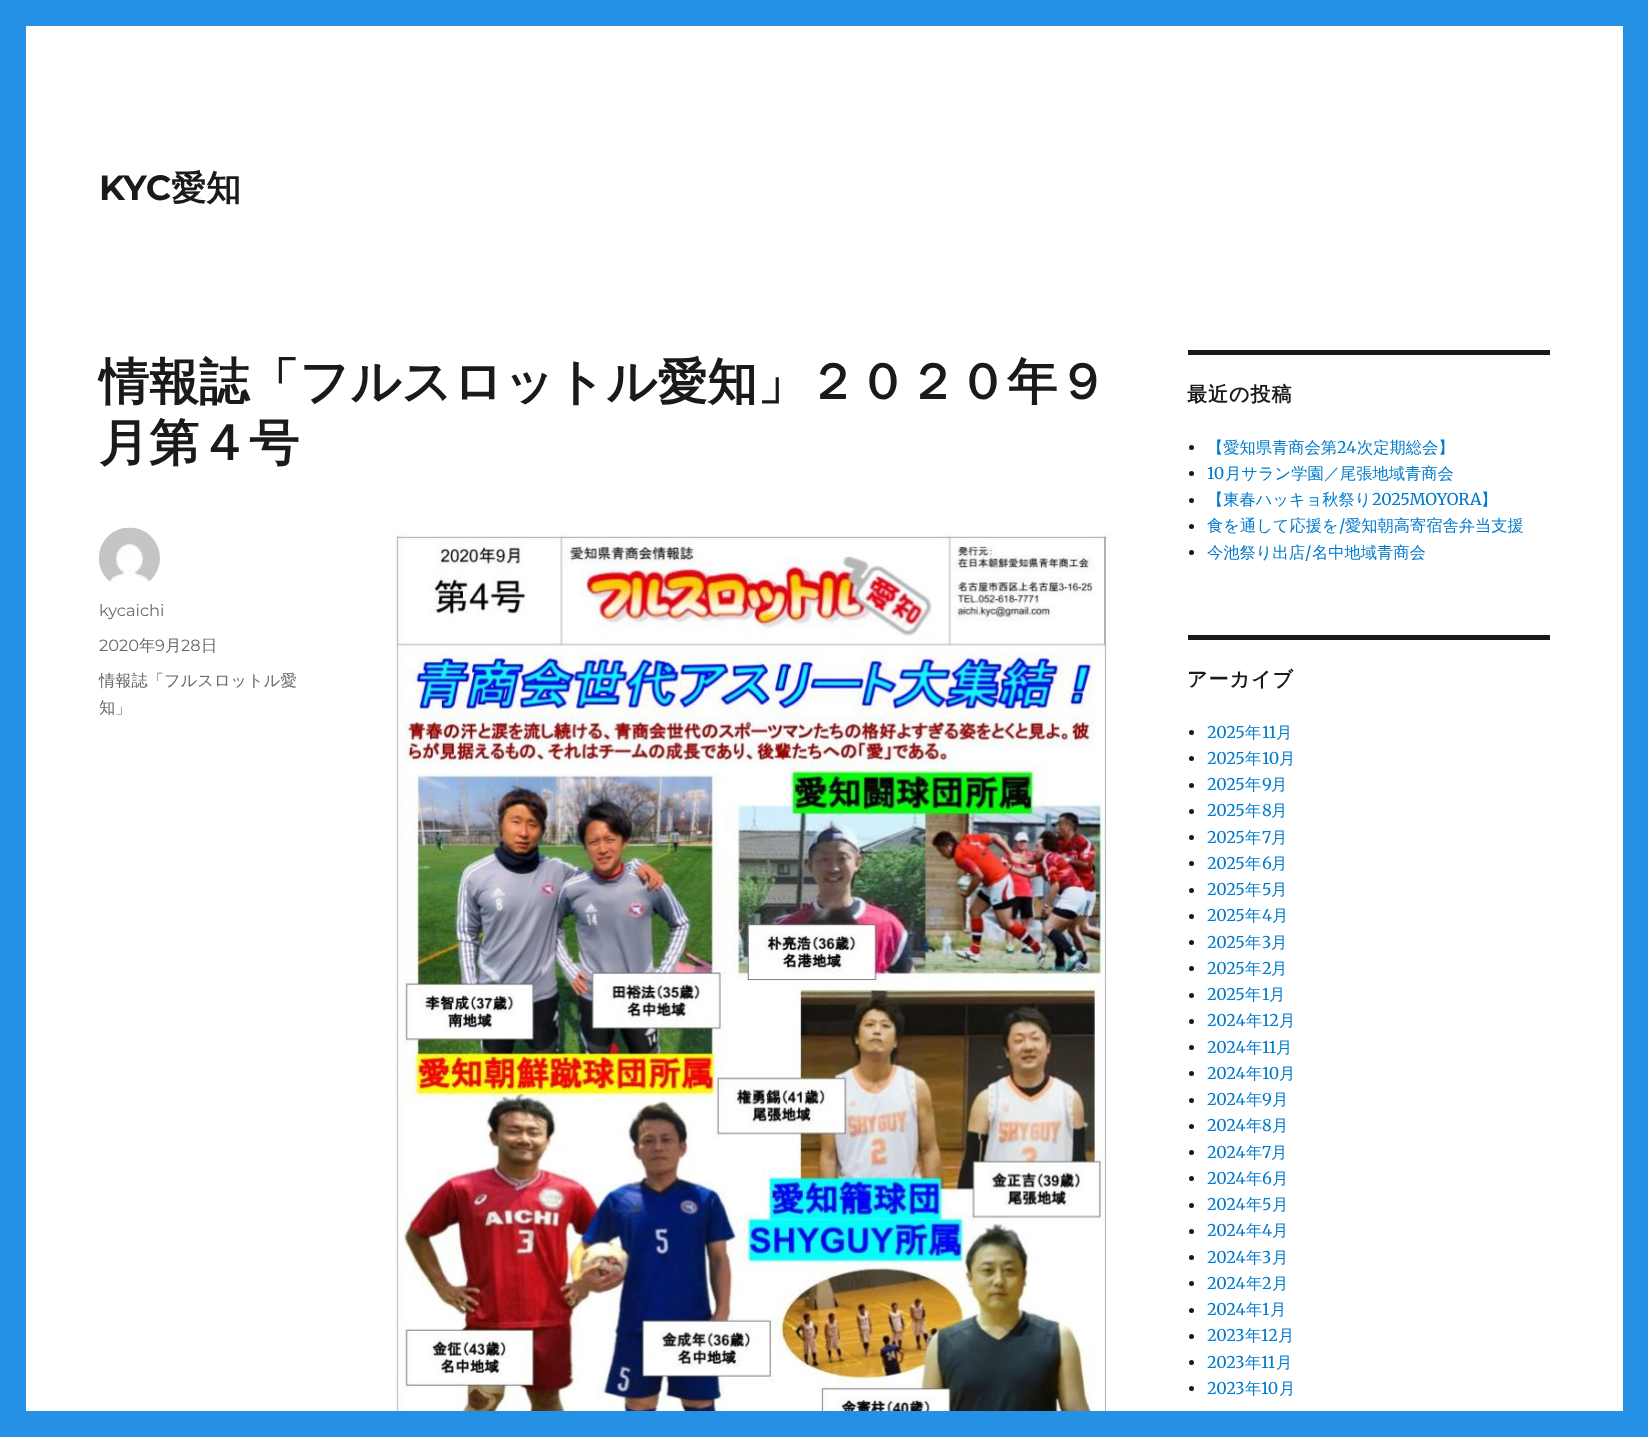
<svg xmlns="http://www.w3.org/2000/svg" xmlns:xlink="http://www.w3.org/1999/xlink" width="1648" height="1437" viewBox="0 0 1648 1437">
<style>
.cls-1{font:bold 35px Montserrat;fill:#1a1a1a}
.cls-2{font:bold 35px WenQuanYi Zen Hei;fill:#1a1a1a}
.cls-3{font:bold 50px WenQuanYi Zen Hei;fill:#1a1a1a}
.cls-4{font:16.25px Montserrat;fill:#686868}
.cls-5{font:500 16.25px WenQuanYi Zen Hei;fill:#686868}
.cls-6{font:bold 20px WenQuanYi Zen Hei;letter-spacing:1px;fill:#1a1a1a}
.cls-7{font:500 16.25px WenQuanYi Zen Hei;fill:#007acc}
.cls-8{font:16.25px Merriweather;fill:#007acc}
</style>
<rect width="100%" height="100%" fill="#2491e5"/>
<rect fill="#ffffff" x="26" y="26" width="1597" height="1385"/>
<image xlink:href="image0.png" x="98" y="527" width="62" height="56"/>
<image xlink:href="image1.png" x="396" y="533" width="715" height="878"/>
<rect fill="#1a1a1a" x="1188" y="350" width="362" height="5"/>
<circle fill="#1a1a1a" cx="1191.5" cy="447.5" r="2.5"/>
<circle fill="#1a1a1a" cx="1191.5" cy="473.5" r="2.5"/>
<circle fill="#1a1a1a" cx="1191.5" cy="500.5" r="2.5"/>
<circle fill="#1a1a1a" cx="1191.5" cy="526.5" r="2.5"/>
<circle fill="#1a1a1a" cx="1191.5" cy="552.5" r="2.5"/>
<rect fill="#1a1a1a" x="1188" y="635" width="362" height="5"/>
<circle fill="#1a1a1a" cx="1191.5" cy="732.5" r="2.5"/>
<circle fill="#1a1a1a" cx="1191.5" cy="758.5" r="2.5"/>
<circle fill="#1a1a1a" cx="1191.5" cy="785.5" r="2.5"/>
<circle fill="#1a1a1a" cx="1191.5" cy="811.5" r="2.5"/>
<circle fill="#1a1a1a" cx="1191.5" cy="837.5" r="2.5"/>
<circle fill="#1a1a1a" cx="1191.5" cy="863.5" r="2.5"/>
<circle fill="#1a1a1a" cx="1191.5" cy="890.5" r="2.5"/>
<circle fill="#1a1a1a" cx="1191.5" cy="916.5" r="2.5"/>
<circle fill="#1a1a1a" cx="1191.5" cy="942.5" r="2.5"/>
<circle fill="#1a1a1a" cx="1191.5" cy="968.5" r="2.5"/>
<circle fill="#1a1a1a" cx="1191.5" cy="995.5" r="2.5"/>
<circle fill="#1a1a1a" cx="1191.5" cy="1021.5" r="2.5"/>
<circle fill="#1a1a1a" cx="1191.5" cy="1047.5" r="2.5"/>
<circle fill="#1a1a1a" cx="1191.5" cy="1073.5" r="2.5"/>
<circle fill="#1a1a1a" cx="1191.5" cy="1100.5" r="2.5"/>
<circle fill="#1a1a1a" cx="1191.5" cy="1126.5" r="2.5"/>
<circle fill="#1a1a1a" cx="1191.5" cy="1152.5" r="2.5"/>
<circle fill="#1a1a1a" cx="1191.5" cy="1178.5" r="2.5"/>
<circle fill="#1a1a1a" cx="1191.5" cy="1205.5" r="2.5"/>
<circle fill="#1a1a1a" cx="1191.5" cy="1231.5" r="2.5"/>
<circle fill="#1a1a1a" cx="1191.5" cy="1257.5" r="2.5"/>
<circle fill="#1a1a1a" cx="1191.5" cy="1283.5" r="2.5"/>
<circle fill="#1a1a1a" cx="1191.5" cy="1310.5" r="2.5"/>
<circle fill="#1a1a1a" cx="1191.5" cy="1336.5" r="2.5"/>
<circle fill="#1a1a1a" cx="1191.5" cy="1362.5" r="2.5"/>
<circle fill="#1a1a1a" cx="1191.5" cy="1388.5" r="2.5"/>
<text class="cls-1" x="99" y="200">KYC</text>
<text class="cls-2" x="171" y="200">愛知</text>
<text class="cls-3"><tspan x="99" y="399">情報誌「フルスロットル愛知」２０２０年９</tspan><tspan x="99" y="460">月第４号</tspan></text>
<text class="cls-4" x="99" y="616">kycaichi</text>
<text class="cls-4" x="99" y="651">2020</text>
<text class="cls-5" x="139" y="651">年</text>
<text class="cls-4" x="155" y="651">9</text>
<text class="cls-5" x="165" y="651">月</text>
<text class="cls-4" x="181" y="651">28</text>
<text class="cls-5" x="201" y="651">日</text>
<text class="cls-5"><tspan x="99" y="686">情報誌「フルスロットル愛</tspan><tspan x="99" y="713">知」</tspan></text>
<text class="cls-6" x="1187" y="401">最近の投稿</text>
<text class="cls-7" x="1207" y="453">【愛知県青商会第</text>
<text class="cls-8" x="1337" y="453">24</text>
<text class="cls-7" x="1357" y="453">次定期総会】</text>
<text class="cls-8" x="1207" y="479">10</text>
<text class="cls-7" x="1225" y="479">月サラン学園／尾張地域青商会</text>
<text class="cls-7" x="1207" y="505">【東春ハッキョ秋祭り</text>
<text class="cls-8" x="1372" y="505">2025MOYORA</text>
<text class="cls-7" x="1481" y="505">】</text>
<text class="cls-7" x="1207" y="531">食を通して応援を</text>
<text class="cls-8" x="1339" y="531">/</text>
<text class="cls-7" x="1345" y="531">愛知朝高寄宿舎弁当支援</text>
<text class="cls-7" x="1207" y="558">今池祭り出店</text>
<text class="cls-8" x="1305" y="558">/</text>
<text class="cls-7" x="1312" y="558">名中地域青商会</text>
<text class="cls-6" x="1187" y="686">アーカイブ</text>
<text class="cls-8" x="1207" y="738">2025</text>
<text class="cls-7" x="1245" y="738">年</text>
<text class="cls-8" x="1262" y="738">11</text>
<text class="cls-7" x="1276" y="738">月</text>
<text class="cls-8" x="1207" y="764">2025</text>
<text class="cls-7" x="1245" y="764">年</text>
<text class="cls-8" x="1262" y="764">10</text>
<text class="cls-7" x="1279" y="764">月</text>
<text class="cls-8" x="1207" y="790">2025</text>
<text class="cls-7" x="1245" y="790">年</text>
<text class="cls-8" x="1262" y="790">9</text>
<text class="cls-7" x="1271" y="790">月</text>
<text class="cls-8" x="1207" y="816">2025</text>
<text class="cls-7" x="1245" y="816">年</text>
<text class="cls-8" x="1262" y="816">8</text>
<text class="cls-7" x="1271" y="816">月</text>
<text class="cls-8" x="1207" y="843">2025</text>
<text class="cls-7" x="1245" y="843">年</text>
<text class="cls-8" x="1262" y="843">7</text>
<text class="cls-7" x="1271" y="843">月</text>
<text class="cls-8" x="1207" y="869">2025</text>
<text class="cls-7" x="1245" y="869">年</text>
<text class="cls-8" x="1262" y="869">6</text>
<text class="cls-7" x="1271" y="869">月</text>
<text class="cls-8" x="1207" y="895">2025</text>
<text class="cls-7" x="1245" y="895">年</text>
<text class="cls-8" x="1262" y="895">5</text>
<text class="cls-7" x="1271" y="895">月</text>
<text class="cls-8" x="1207" y="921">2025</text>
<text class="cls-7" x="1245" y="921">年</text>
<text class="cls-8" x="1262" y="921">4</text>
<text class="cls-7" x="1272" y="921">月</text>
<text class="cls-8" x="1207" y="948">2025</text>
<text class="cls-7" x="1245" y="948">年</text>
<text class="cls-8" x="1262" y="948">3</text>
<text class="cls-7" x="1271" y="948">月</text>
<text class="cls-8" x="1207" y="974">2025</text>
<text class="cls-7" x="1245" y="974">年</text>
<text class="cls-8" x="1262" y="974">2</text>
<text class="cls-7" x="1271" y="974">月</text>
<text class="cls-8" x="1207" y="1000">2025</text>
<text class="cls-7" x="1245" y="1000">年</text>
<text class="cls-8" x="1262" y="1000">1</text>
<text class="cls-7" x="1269" y="1000">月</text>
<text class="cls-8" x="1207" y="1026">2024</text>
<text class="cls-7" x="1246" y="1026">年</text>
<text class="cls-8" x="1262" y="1026">12</text>
<text class="cls-7" x="1279" y="1026">月</text>
<text class="cls-8" x="1207" y="1053">2024</text>
<text class="cls-7" x="1246" y="1053">年</text>
<text class="cls-8" x="1262" y="1053">11</text>
<text class="cls-7" x="1276" y="1053">月</text>
<text class="cls-8" x="1207" y="1079">2024</text>
<text class="cls-7" x="1246" y="1079">年</text>
<text class="cls-8" x="1262" y="1079">10</text>
<text class="cls-7" x="1279" y="1079">月</text>
<text class="cls-8" x="1207" y="1105">2024</text>
<text class="cls-7" x="1246" y="1105">年</text>
<text class="cls-8" x="1262" y="1105">9</text>
<text class="cls-7" x="1272" y="1105">月</text>
<text class="cls-8" x="1207" y="1131">2024</text>
<text class="cls-7" x="1246" y="1131">年</text>
<text class="cls-8" x="1262" y="1131">8</text>
<text class="cls-7" x="1272" y="1131">月</text>
<text class="cls-8" x="1207" y="1158">2024</text>
<text class="cls-7" x="1246" y="1158">年</text>
<text class="cls-8" x="1262" y="1158">7</text>
<text class="cls-7" x="1271" y="1158">月</text>
<text class="cls-8" x="1207" y="1184">2024</text>
<text class="cls-7" x="1246" y="1184">年</text>
<text class="cls-8" x="1262" y="1184">6</text>
<text class="cls-7" x="1272" y="1184">月</text>
<text class="cls-8" x="1207" y="1210">2024</text>
<text class="cls-7" x="1246" y="1210">年</text>
<text class="cls-8" x="1262" y="1210">5</text>
<text class="cls-7" x="1272" y="1210">月</text>
<text class="cls-8" x="1207" y="1236">2024</text>
<text class="cls-7" x="1246" y="1236">年</text>
<text class="cls-8" x="1262" y="1236">4</text>
<text class="cls-7" x="1272" y="1236">月</text>
<text class="cls-8" x="1207" y="1263">2024</text>
<text class="cls-7" x="1246" y="1263">年</text>
<text class="cls-8" x="1262" y="1263">3</text>
<text class="cls-7" x="1272" y="1263">月</text>
<text class="cls-8" x="1207" y="1289">2024</text>
<text class="cls-7" x="1246" y="1289">年</text>
<text class="cls-8" x="1262" y="1289">2</text>
<text class="cls-7" x="1272" y="1289">月</text>
<text class="cls-8" x="1207" y="1315">2024</text>
<text class="cls-7" x="1246" y="1315">年</text>
<text class="cls-8" x="1262" y="1315">1</text>
<text class="cls-7" x="1270" y="1315">月</text>
<text class="cls-8" x="1207" y="1341">2023</text>
<text class="cls-7" x="1245" y="1341">年</text>
<text class="cls-8" x="1261" y="1341">12</text>
<text class="cls-7" x="1278" y="1341">月</text>
<text class="cls-8" x="1207" y="1368">2023</text>
<text class="cls-7" x="1245" y="1368">年</text>
<text class="cls-8" x="1261" y="1368">11</text>
<text class="cls-7" x="1276" y="1368">月</text>
<text class="cls-8" x="1207" y="1394">2023</text>
<text class="cls-7" x="1245" y="1394">年</text>
<text class="cls-8" x="1261" y="1394">10</text>
<text class="cls-7" x="1279" y="1394">月</text>
</svg>
